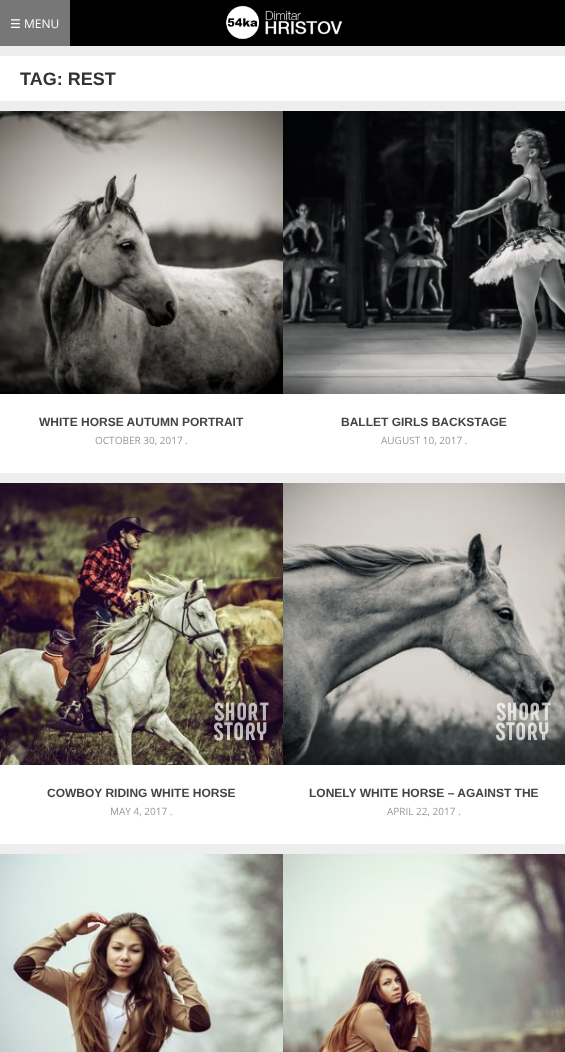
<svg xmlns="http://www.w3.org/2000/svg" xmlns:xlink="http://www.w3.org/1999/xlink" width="565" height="1052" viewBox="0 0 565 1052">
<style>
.cls-1{font:12px DejaVu Sans;fill:#ffffff}
.cls-2{font:12px Open Sans;fill:#ffffff}
.cls-3{font:bold 18px Liberation Sans;fill:#333333}
.cls-4{font:bold 12px Liberation Sans;fill:#444444}
.cls-5{font:10px Open Sans;fill:#999999}
</style>
<rect width="100%" height="100%" fill="#eeeeee"/>
<rect fill="#000000" x="70" y="0" width="495" height="46"/>
<image xlink:href="image0.png" x="226" y="5" width="117" height="35"/>
<rect fill="#777777" x="0" y="0" width="70" height="46"/>
<rect fill="#ffffff" x="0" y="56" width="565" height="45"/>
<rect fill="#ffffff" x="0" y="394" width="565" height="79"/>
<image xlink:href="image1.png" x="0" y="111" width="283" height="283"/>
<image xlink:href="image2.png" x="283" y="111" width="282" height="283"/>
<rect fill="#ffffff" x="0" y="765" width="565" height="79"/>
<image xlink:href="image3.png" x="0" y="483" width="283" height="282"/>
<image xlink:href="image4.png" x="212" y="697" width="57" height="47"/>
<image xlink:href="image5.png" x="283" y="483" width="282" height="282"/>
<image xlink:href="image6.png" x="490" y="697" width="64" height="45"/>
<image xlink:href="image7.png" x="0" y="854" width="283" height="198"/>
<image xlink:href="image8.png" x="283" y="854" width="282" height="198"/>
<text class="cls-1" x="10" y="28">☰</text>
<text class="cls-2" x="24" y="28">MENU</text>
<text class="cls-3" x="20" y="85">TAG: REST</text>
<text class="cls-4" x="39" y="426">WHITE HORSE AUTUMN PORTRAIT</text>
<text class="cls-5" x="95" y="444">OCTOBER 30, 2017 .</text>
<text class="cls-4" x="341" y="426">BALLET GIRLS BACKSTAGE</text>
<text class="cls-5" x="381" y="444">AUGUST 10, 2017 .</text>
<text class="cls-4" x="47" y="797">COWBOY RIDING WHITE HORSE</text>
<text class="cls-5" x="110" y="815">MAY 4, 2017 .</text>
<text class="cls-4" x="309" y="797">LONELY WHITE HORSE – AGAINST THE</text>
<text class="cls-5" x="387" y="815">APRIL 22, 2017 .</text>
</svg>
